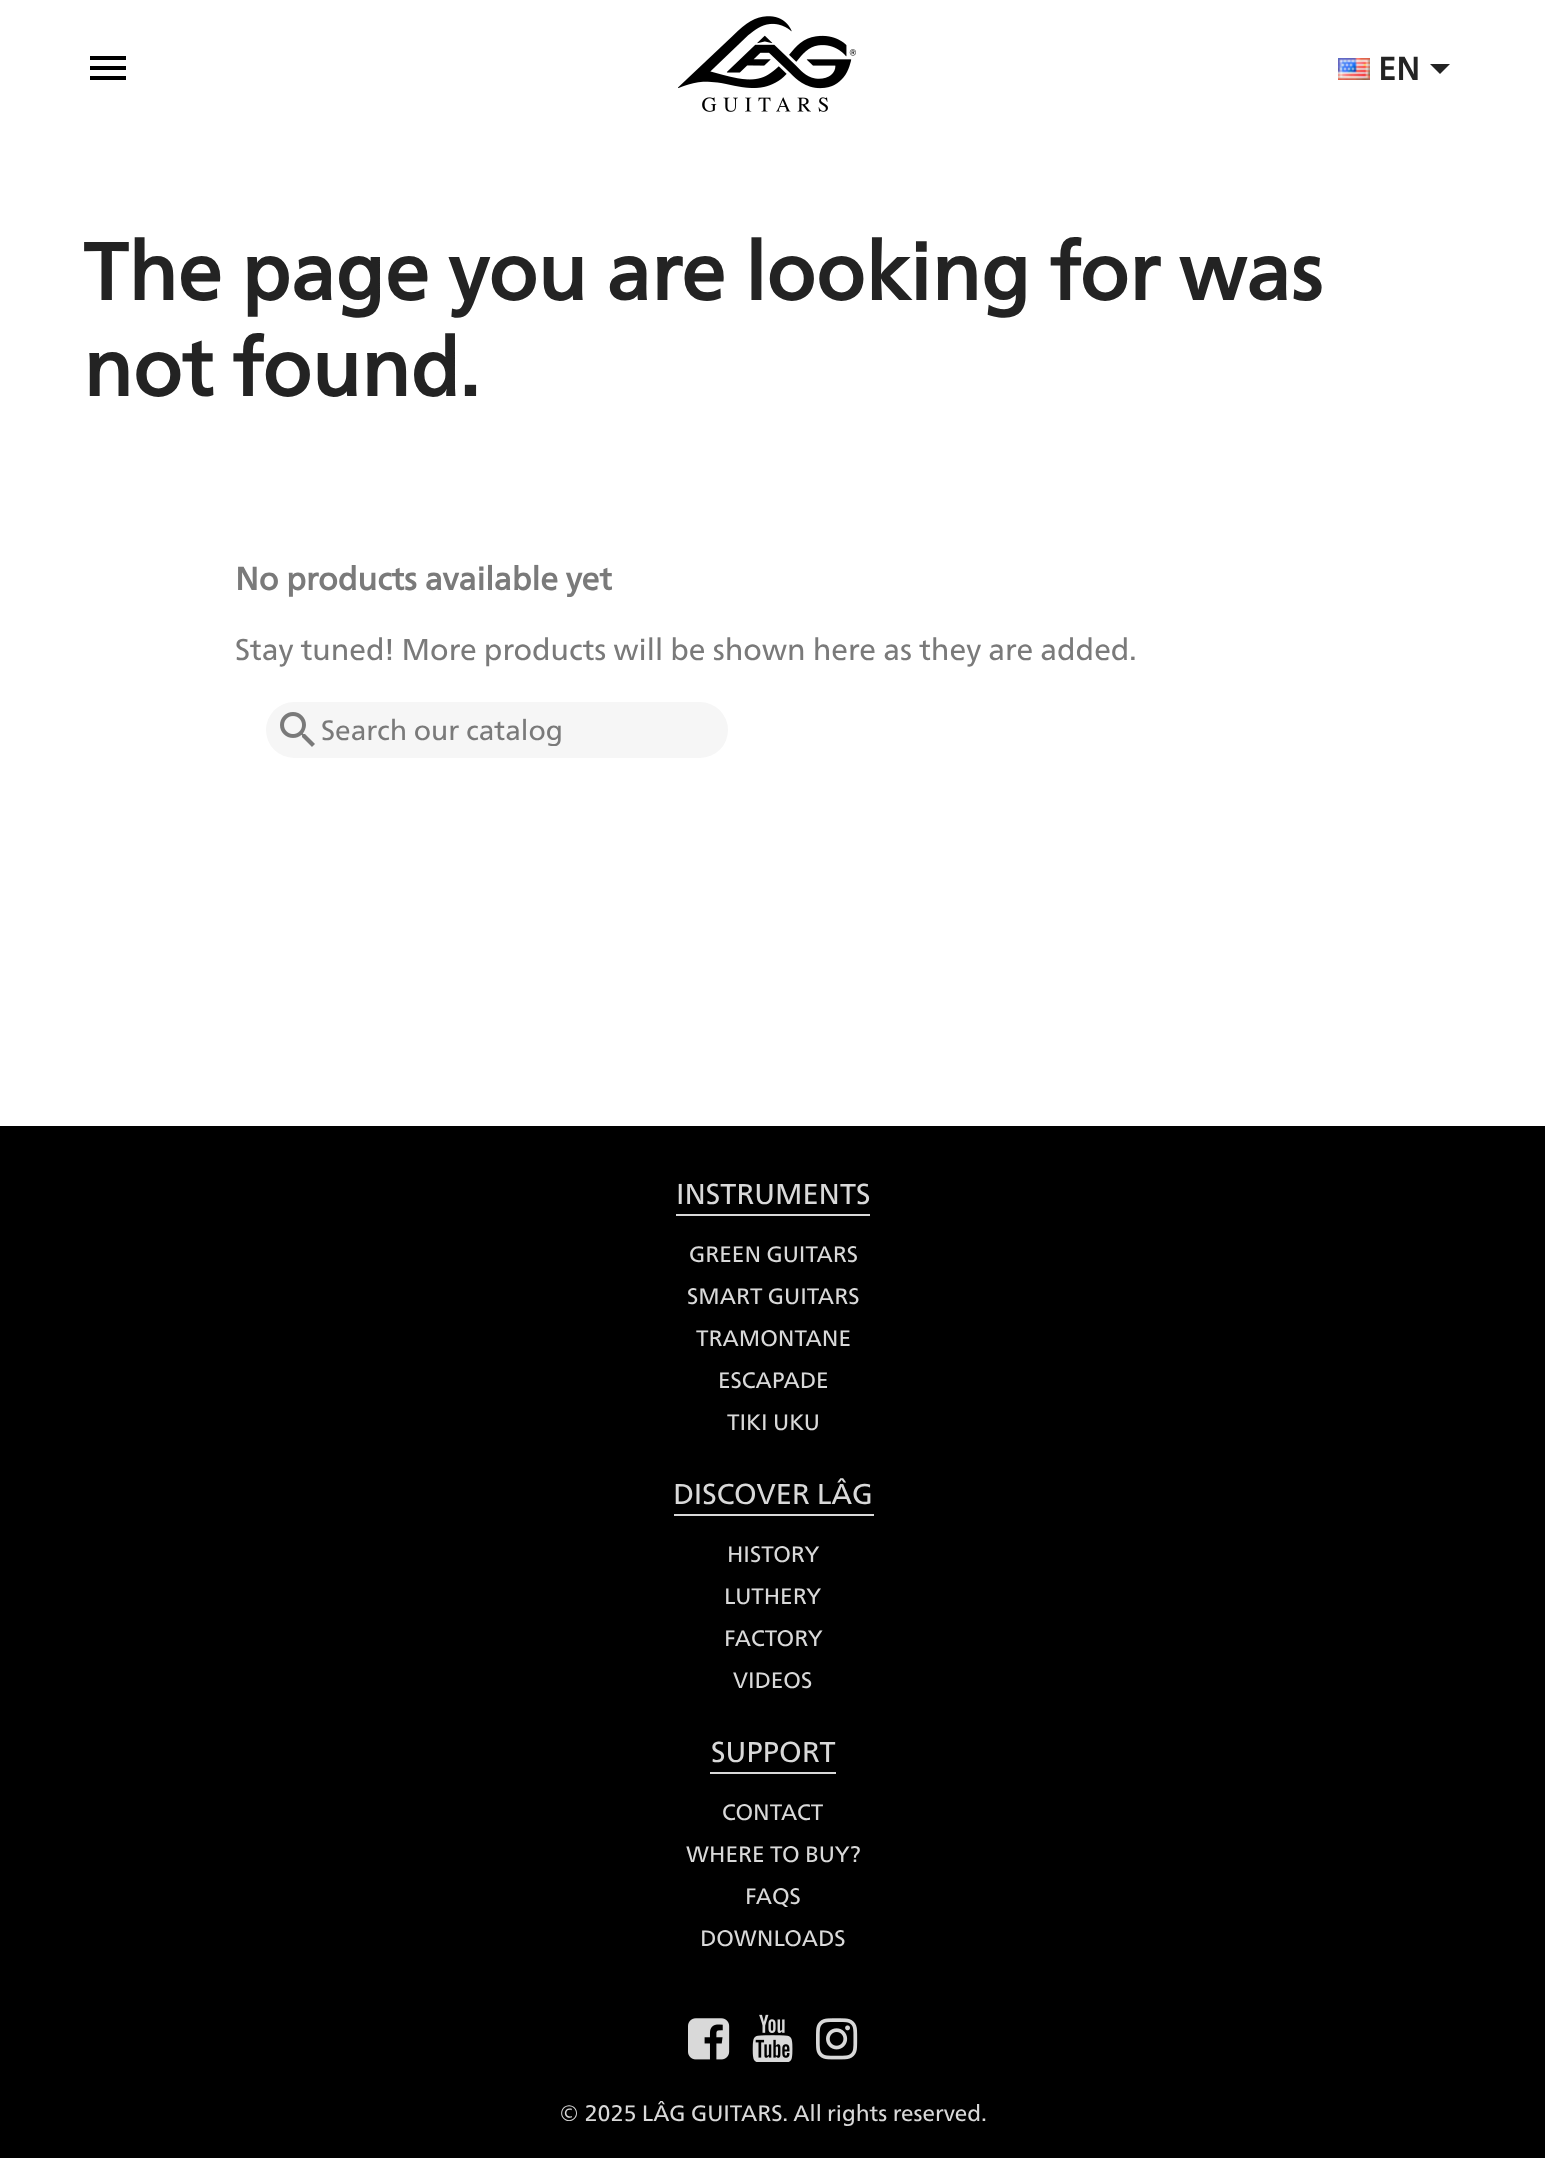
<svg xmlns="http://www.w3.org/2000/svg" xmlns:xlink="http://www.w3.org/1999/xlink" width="1545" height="2158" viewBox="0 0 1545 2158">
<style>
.cls-1{font:bold 32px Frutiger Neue;fill:#232323}
.cls-2{font:bold 80px Frutiger Neue;fill:#232323}
.cls-3{font:bold 32px Frutiger Neue;fill:#7a7a7a}
.cls-4{font:30px Frutiger Neue;fill:#7a7a7a}
.cls-5{font:28px Frutiger Neue;fill:#7a7a7a}
.cls-6{font:28.75px Frutiger Neue;fill:#d9d9d9}
.cls-7{font:22.4px Frutiger Neue;fill:#d9d9d9}
</style>
<defs>
<clipPath id="clip1"><rect x="322" y="714" width="350" height="32"/></clipPath>
</defs>
<rect width="100%" height="100%" fill="#ffffff"/>
<path fill="#000000" d="M90 56H126V60H90ZM90 70V66H126V70ZM90 80V76H126V80Z"/>
<image xlink:href="image0.png" x="678" y="16" width="178" height="96"/>
<image xlink:href="image1.png" x="1338" y="58" width="32" height="22"/>
<path fill="#232323" d="M1430 64H1450L1440 74Z"/>
<rect fill="#f6f6f6" x="266" y="702" width="462" height="56" rx="28"/>
<image xlink:href="image2.png" x="280" y="712" width="35" height="35"/>
<rect fill="#000000" x="0" y="1126" width="1545" height="1032"/>
<rect fill="#d9d9d9" x="676" y="1214" width="194" height="2"/>
<rect fill="#d9d9d9" x="674" y="1514" width="200" height="2"/>
<rect fill="#d9d9d9" x="710" y="1772" width="126" height="2"/>
<image xlink:href="image3.png" x="688" y="2018" width="42" height="42"/>
<image xlink:href="image4.png" x="752" y="2014" width="41" height="48"/>
<image xlink:href="image5.png" x="816" y="2018" width="42" height="42"/>
<text class="cls-1" x="1378" y="80">EN</text>
<text class="cls-2"><tspan x="83" y="300">The page you are looking for was</tspan><tspan x="83" y="396">not found.</tspan></text>
<text class="cls-3" x="235" y="590">No products available yet</text>
<text class="cls-4" x="235" y="660">Stay tuned! More products will be shown here as they are added.</text>
<g clip-path="url(#clip1)">
<text class="cls-5" x="321" y="740">Search our catalog</text>
</g>
<text class="cls-6" x="676" y="1204">INSTRUMENTS</text>
<text class="cls-7" x="689" y="1262">GREEN GUITARS</text>
<text class="cls-7" x="687" y="1304">SMART GUITARS</text>
<text class="cls-7" x="696" y="1346">TRAMONTANE</text>
<text class="cls-7" x="718" y="1388">ESCAPADE</text>
<text class="cls-7" x="727" y="1430">TIKI UKU</text>
<text class="cls-6" x="673" y="1504">DISCOVER LÂG</text>
<text class="cls-7" x="727" y="1562">HISTORY</text>
<text class="cls-7"><tspan x="724" y="1604">LUTHERY</tspan><tspan x="724" y="1646">FACTORY</tspan></text>
<text class="cls-7" x="733" y="1688">VIDEOS</text>
<text class="cls-6" x="711" y="1762">SUPPORT</text>
<text class="cls-7" x="722" y="1820">CONTACT</text>
<text class="cls-7" x="686" y="1862">WHERE TO BUY?</text>
<text class="cls-7" x="745" y="1904">FAQS</text>
<text class="cls-7" x="700" y="1946">DOWNLOADS</text>
<text class="cls-7" x="559" y="2121">© 2025 LÂG GUITARS. All rights reserved.</text>
</svg>
